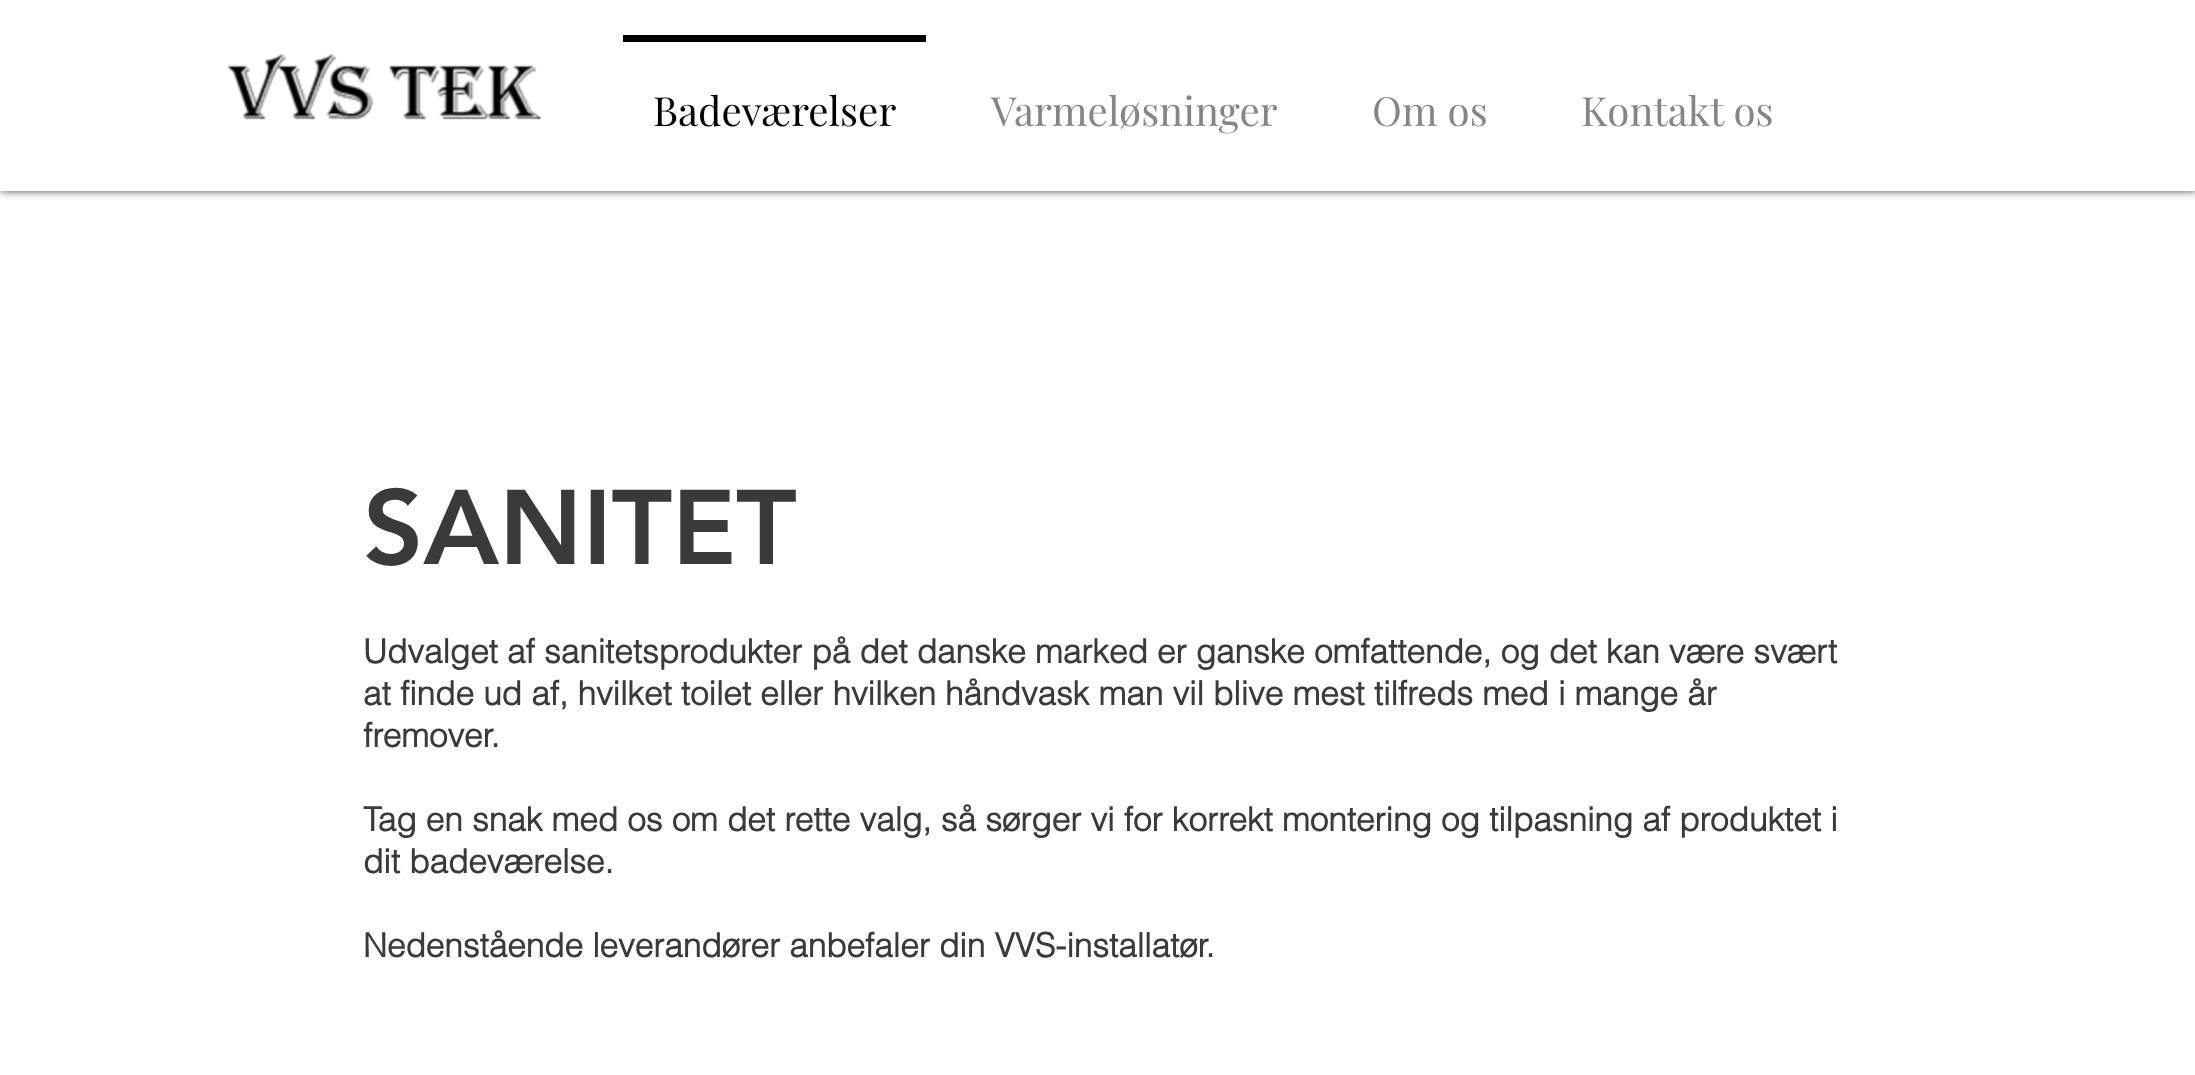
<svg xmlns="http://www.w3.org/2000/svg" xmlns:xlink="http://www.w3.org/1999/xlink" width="2195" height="1075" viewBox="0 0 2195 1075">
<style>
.cls-1{font:40.25px Playfair Display;fill:#000000}
.cls-2{font:40.25px Playfair Display;fill:#858585}
.cls-3{font:900 105px 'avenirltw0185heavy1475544';fill:#3b3a3a}
.cls-4{font:bold 33.25px helvetica;fill:#3b3a3a}
</style>
<rect width="100%" height="100%" fill="#ffffff"/>
<rect fill="#000000" fill-opacity="0.7" filter="blur(4.5px)" x="0" y="0" width="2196" height="191"/>
<rect fill="#ffffff" x="0" y="0" width="2195" height="191"/>
<image xlink:href="image0.png" x="227" y="54" width="314" height="66"/>
<rect fill="#000000" x="623" y="35" width="303" height="7"/>
<text class="cls-1" x="653" y="126">Badeværelser</text>
<text class="cls-2" x="991" y="126">Varmeløsninger</text>
<text class="cls-2" x="1372" y="126">Om os</text>
<text class="cls-2" x="1581" y="126">Kontakt os</text>
<text class="cls-3" x="363" y="564">SANITET</text>
<text class="cls-4"><tspan x="363" y="663">Udvalget af sanitetsprodukter på det danske marked er ganske omfattende, og det kan være svært</tspan><tspan x="363" y="705">at finde ud af, hvilket toilet eller hvilken håndvask man vil blive mest tilfreds med i mange år</tspan><tspan x="363" y="747">fremover.</tspan></text>
<text class="cls-4"><tspan x="363" y="831">Tag en snak med os om det rette valg, så sørger vi for korrekt montering og tilpasning af produktet i</tspan><tspan x="363" y="873">dit badeværelse.</tspan></text>
<text class="cls-4" x="363" y="957">Nedenstående leverandører anbefaler din VVS-installatør.</text>
</svg>
